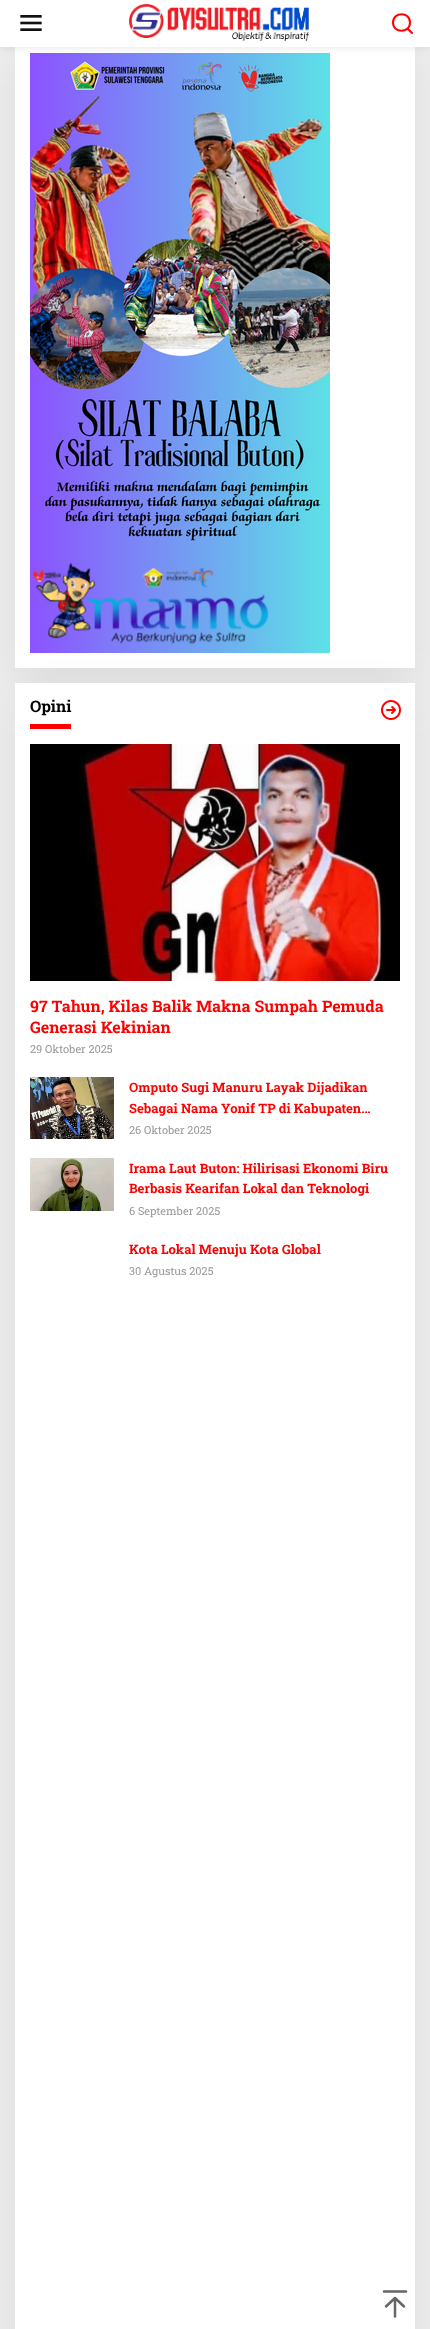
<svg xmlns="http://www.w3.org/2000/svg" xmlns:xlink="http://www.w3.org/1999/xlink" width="430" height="2329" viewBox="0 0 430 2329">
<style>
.cls-1{font:bold 16px Roboto Slab;fill:#000000}
.cls-2{font:bold 16px Roboto Slab;fill:#ff0000}
.cls-3{font:11px Roboto Slab;fill:#999999}
.cls-4{font:bold 13px Roboto Slab;fill:#ff0000}
</style>
<rect width="100%" height="100%" fill="#eeeeee"/>
<rect fill="#000000" fill-opacity="0.07" filter="blur(22.5px)" x="15" y="54" width="400" height="630"/>
<rect fill="#ffffff" x="15" y="47" width="400" height="621"/>
<rect fill="#000000" fill-opacity="0.07" filter="blur(22.5px)" x="15" y="699" width="400" height="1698"/>
<image xlink:href="image2.png" x="30" y="53" width="300" height="600"/>
<rect fill="#000000" fill-opacity="0.1" filter="blur(5px)" x="0" y="0" width="430" height="47"/>
<rect fill="#ffffff" x="0" y="0" width="430" height="47"/>
<image xlink:href="image0.png" x="20" y="15" width="22" height="16"/>
<image xlink:href="image1.png" x="129" y="4" width="180" height="38"/>
<path fill="none" stroke="#ff0000" stroke-width="2" stroke-linecap="round" d="M412 33L407.5 28.5M410 22.5C410 33.5 393 33.5 393 22.5C393 11.5 410 11.5 410 22.5Z"/>
<rect fill="#ffffff" x="15" y="683" width="400" height="1646"/>
<rect fill="#ff0000" x="30" y="724" width="41" height="5"/>
<image xlink:href="image3.png" x="381" y="700" width="20" height="20"/>
<image xlink:href="image4.png" x="30" y="744" width="370" height="237"/>
<image xlink:href="image5.png" x="30" y="1077" width="84" height="62"/>
<image xlink:href="image6.png" x="30" y="1158" width="84" height="53"/>
<path fill="none" stroke="#666666" stroke-width="2.5" stroke-linecap="round" stroke-linejoin="round" d="M395 2316.5V2298M386 2306.5L395 2298L404 2306.5M384 2291.5H406"/>
<text class="cls-1" x="30" y="712">Opini</text>
<text class="cls-2"><tspan x="30" y="1012">97 Tahun, Kilas Balik Makna Sumpah Pemuda</tspan><tspan x="30" y="1033">Generasi Kekinian</tspan></text>
<text class="cls-3" x="30" y="1053">29 Oktober 2025</text>
<text class="cls-4"><tspan x="129" y="1092">Omputo Sugi Manuru Layak Dijadikan</tspan><tspan x="129" y="1113">Sebagai Nama Yonif TP di Kabupaten…</tspan></text>
<text class="cls-3" x="129" y="1134">26 Oktober 2025</text>
<text class="cls-4"><tspan x="129" y="1173">Irama Laut Buton: Hilirisasi Ekonomi Biru</tspan><tspan x="129" y="1193">Berbasis Kearifan Lokal dan Teknologi</tspan></text>
<text class="cls-3" x="129" y="1215">6 September 2025</text>
<text class="cls-4" x="129" y="1254">Kota Lokal Menuju Kota Global</text>
<text class="cls-3" x="129" y="1275">30 Agustus 2025</text>
</svg>
